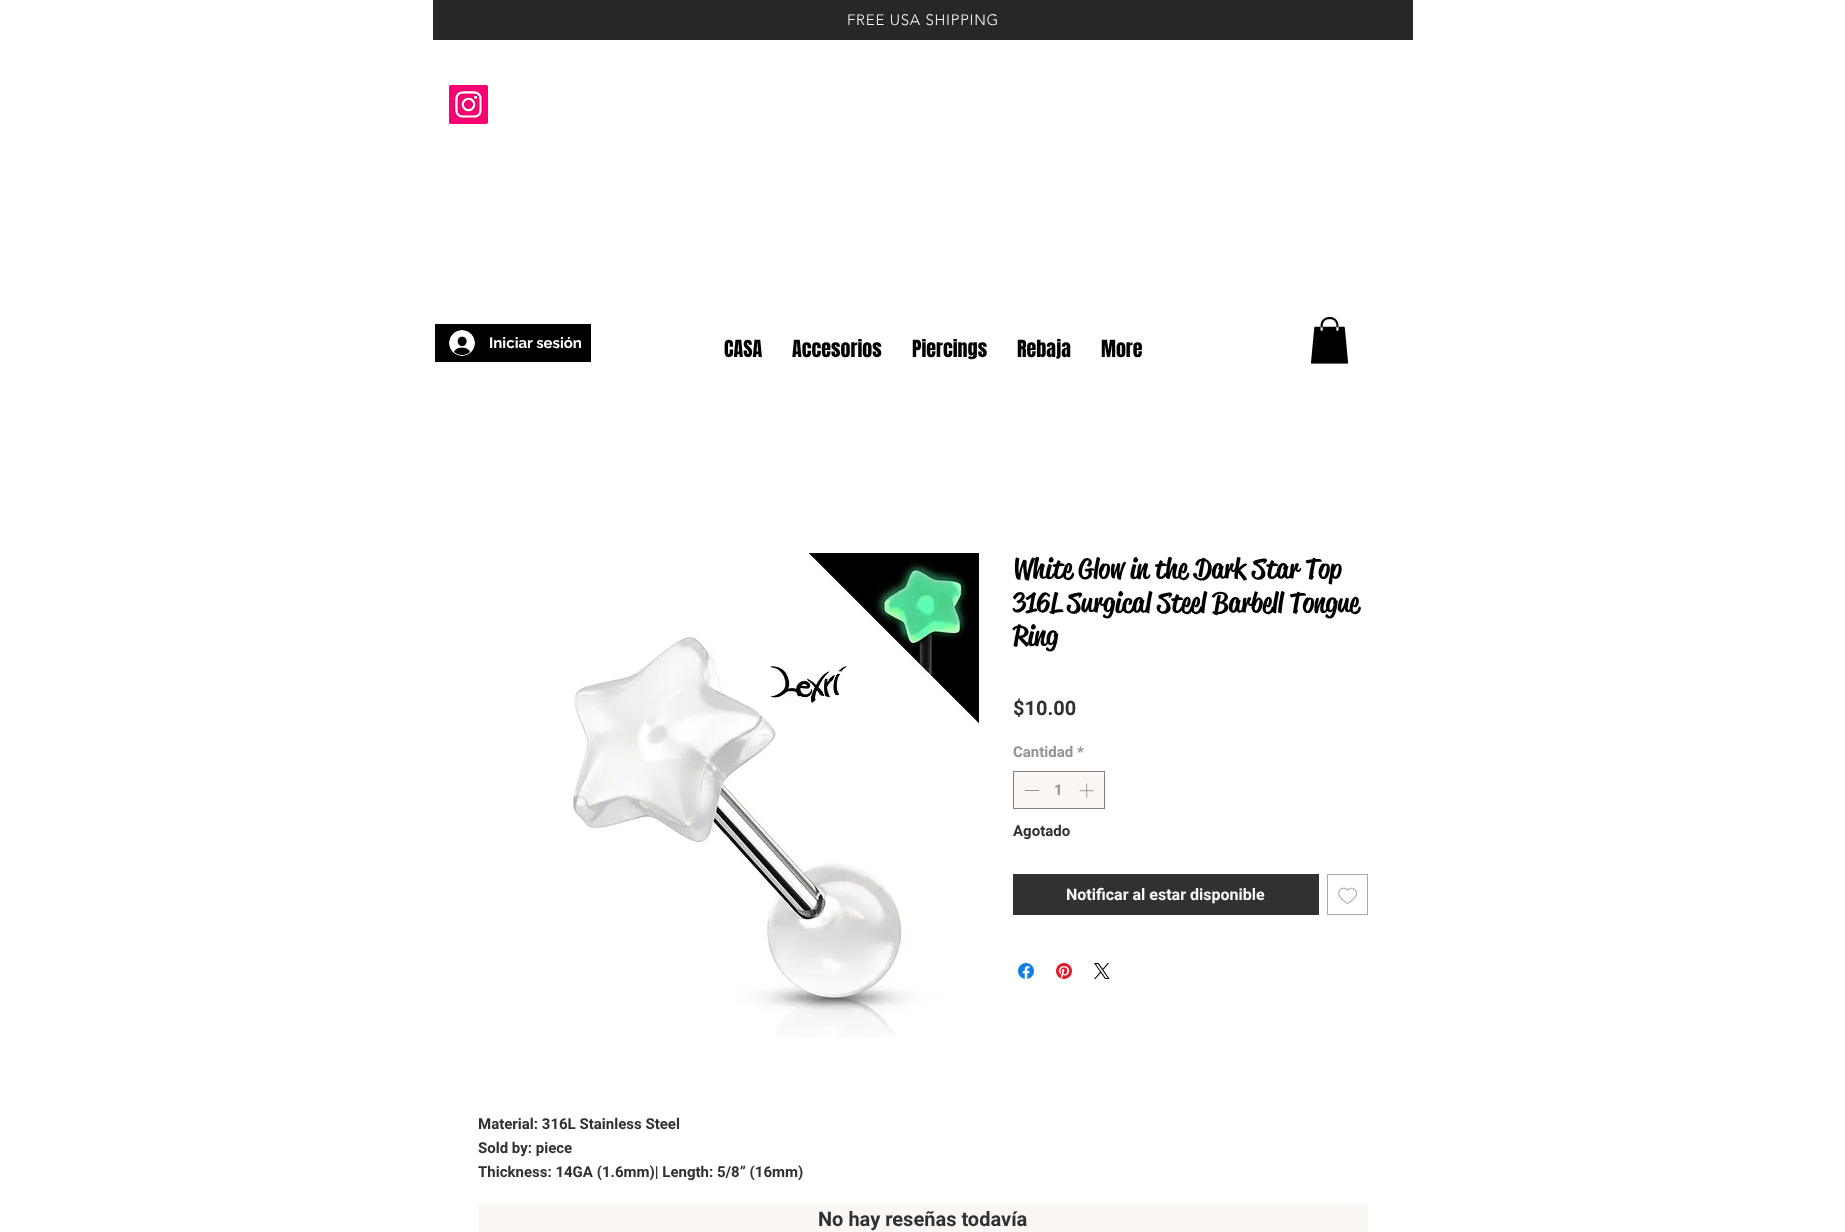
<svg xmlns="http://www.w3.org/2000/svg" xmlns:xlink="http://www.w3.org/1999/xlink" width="1845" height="1232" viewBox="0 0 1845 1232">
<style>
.cls-1{font:300 15px 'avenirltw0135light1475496';letter-spacing:0.75px;fill:#faf7f5}
.cls-2{font:bold 15px Raleway;fill:#ffffff}
.cls-3{font:20px Anton;fill:#000000}
.cls-4{font:500 28px 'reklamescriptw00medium';fill:#000000}
.cls-5{font:bold 20px Roboto;fill:#323131}
.cls-6{font:bold 15px Roboto;fill:#969493}
.cls-7{font:bold 15px Roboto;fill:#323131}
.cls-8{font:bold 16px Roboto;fill:#faf7f5}
</style>
<rect width="100%" height="100%" fill="#ffffff"/>
<rect fill="#282626" x="433" y="0" width="980" height="40"/>
<image xlink:href="image0.png" x="449" y="85" width="39" height="39"/>
<rect fill="#000000" x="435" y="324" width="156" height="38"/>
<image xlink:href="image1.png" x="449" y="330" width="26" height="26"/>
<image xlink:href="image2.png" x="1311" y="317" width="38" height="47"/>
<rect fill="#faf7f5" stroke="#82807f" x="1013.5" y="771.5" width="91" height="37"/>
<rect fill="#969493" x="1025" y="790" width="14" height="1"/>
<image xlink:href="image3.png" x="1079" y="783" width="15" height="15"/>
<rect fill="#323131" x="1013" y="874" width="306" height="41"/>
<rect fill="none" stroke="#aaaaaa" x="1327.5" y="874.5" width="40" height="40"/>
<image xlink:href="image4.png" x="1338" y="887" width="19" height="17"/>
<image xlink:href="image5.png" x="1018" y="963" width="16" height="16"/>
<image xlink:href="image6.png" x="1056" y="963" width="16" height="16"/>
<image xlink:href="image7.png" x="1094" y="963" width="16" height="16"/>
<image xlink:href="image8.png" x="573" y="553" width="406" height="484"/>
<rect fill="#faf7f5" x="478" y="1204" width="890" height="28"/>
<text class="cls-1" x="847" y="25">FREE USA SHIPPING</text>
<text class="cls-2" x="489" y="348">Iniciar sesión</text>
<text class="cls-3" x="724" y="357">CASA</text>
<text class="cls-3" x="792" y="357">Accesorios</text>
<text class="cls-3" x="912" y="357">Piercings</text>
<text class="cls-3" x="1017" y="357">Rebaja</text>
<text class="cls-3" x="1101" y="357">More</text>
<text class="cls-4"><tspan x="1013" y="578">White Glow in the Dark Star Top</tspan><tspan x="1013" y="612">316L Surgical Steel Barbell Tongue</tspan><tspan x="1013" y="645">Ring</tspan></text>
<text class="cls-5" x="1013" y="715">$10.00</text>
<text class="cls-6" x="1013" y="757">Cantidad *</text>
<text class="cls-6" x="1054" y="795">1</text>
<text class="cls-7" x="1013" y="836">Agotado</text>
<text class="cls-8" x="1066" y="900">Notificar al estar disponible</text>
<text class="cls-7"><tspan x="478" y="1129">Material: 316L Stainless Steel</tspan><tspan x="478" y="1153">Sold by: piece</tspan><tspan x="478" y="1177">Thickness: 14GA (1.6mm)| Length: 5/8” (16mm)</tspan></text>
<text class="cls-5" x="818" y="1226">No hay reseñas todavía</text>
</svg>
